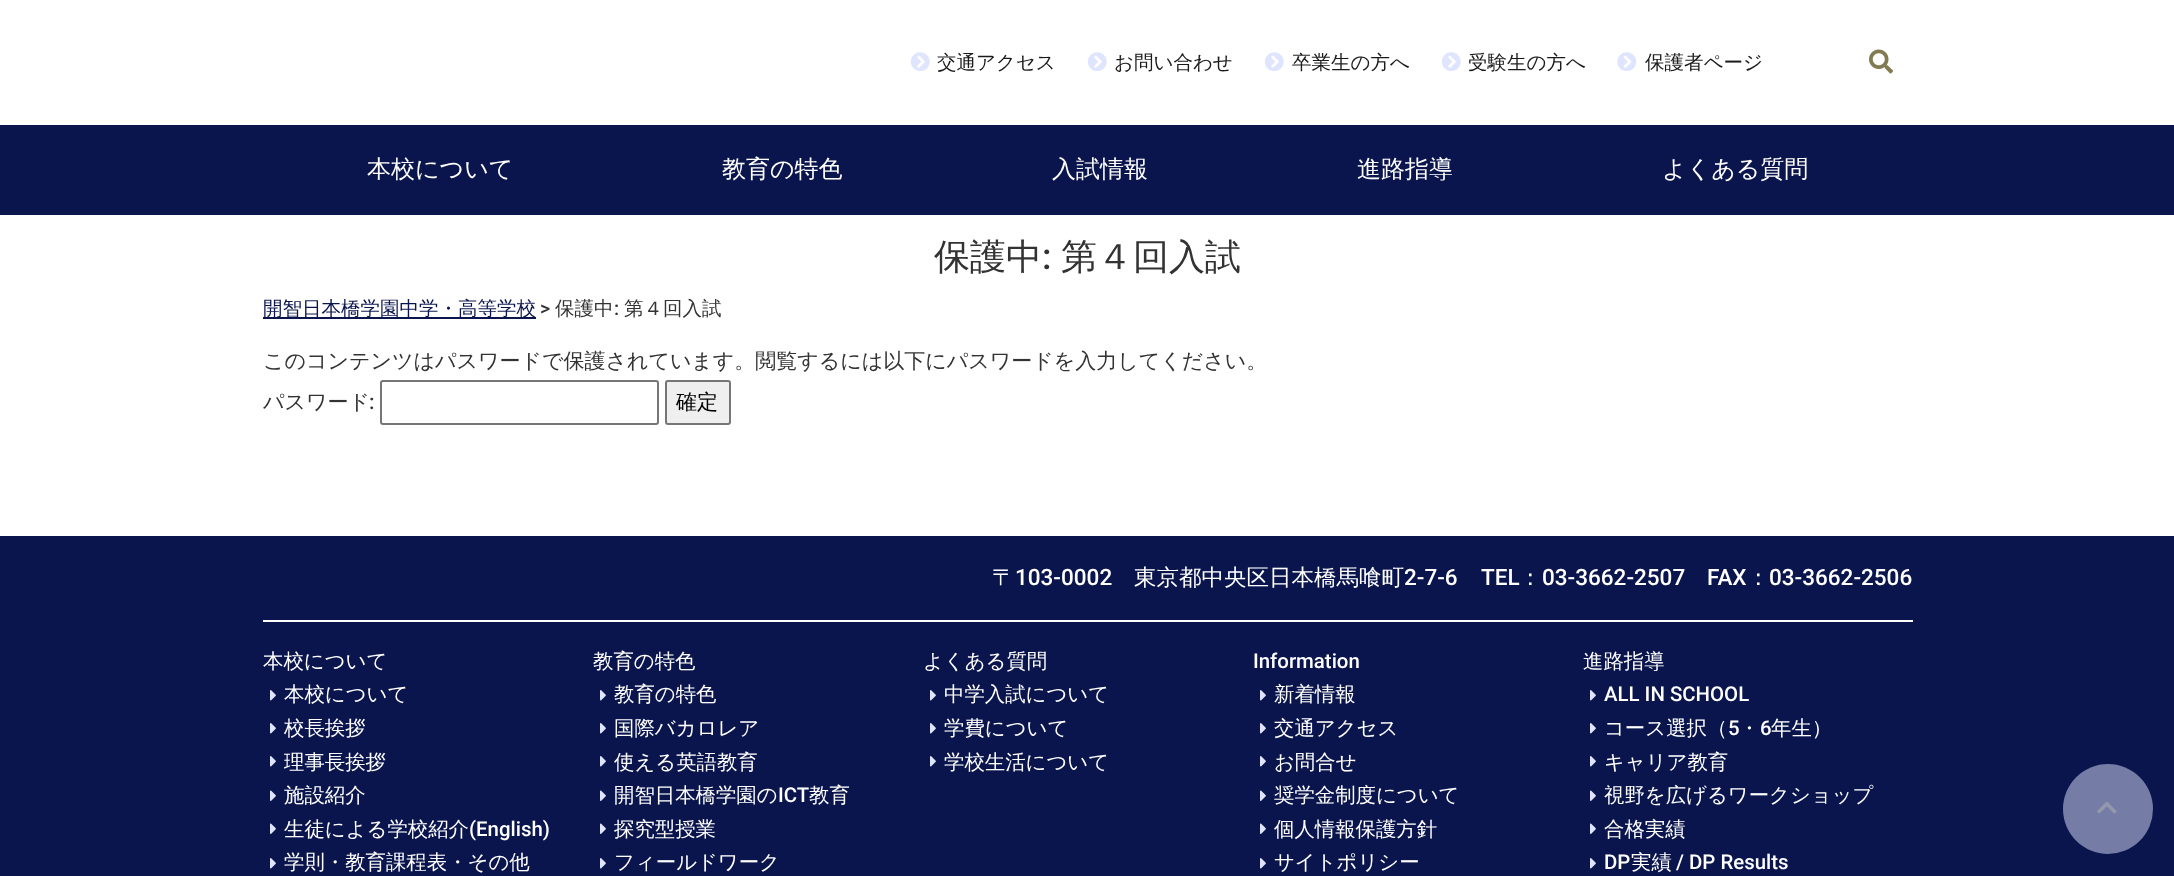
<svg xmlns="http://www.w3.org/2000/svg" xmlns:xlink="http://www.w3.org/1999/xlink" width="2174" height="876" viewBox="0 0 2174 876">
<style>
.cls-1{font:500 19.5px WenQuanYi Zen Hei;fill:#1a1a1a}
.cls-2{font:500 24px WenQuanYi Zen Hei;fill:#ffffff}
.cls-3{font:500 36px WenQuanYi Zen Hei;fill:#333333}
.cls-4{font:500 36px Roboto;fill:#333333}
.cls-5{font:500 19.5px WenQuanYi Zen Hei;fill:#0a154e}
.cls-6{font:500 19.5px Roboto;fill:#333333}
.cls-7{font:500 19.5px WenQuanYi Zen Hei;fill:#333333}
.cls-8{font:500 21px WenQuanYi Zen Hei;fill:#333333}
.cls-9{font:500 21px Roboto;fill:#333333}
.cls-10{font:500 21px WenQuanYi Zen Hei;fill:#000000}
.cls-11{font:500 22.5px WenQuanYi Zen Hei;fill:#ffffff}
.cls-12{font:500 22.5px Roboto;fill:#ffffff}
.cls-13{font:500 20.4px WenQuanYi Zen Hei;fill:#ffffff}
.cls-14{font:500 20.4px Roboto;fill:#ffffff}
</style>
<rect width="100%" height="100%" fill="#ffffff"/>
<image xlink:href="image0.png" x="910" y="52" width="20" height="19"/>
<image xlink:href="image0.png" x="1087" y="52" width="20" height="19"/>
<image xlink:href="image0.png" x="1264" y="52" width="20" height="19"/>
<image xlink:href="image0.png" x="1441" y="52" width="20" height="19"/>
<image xlink:href="image1.png" x="1617" y="52" width="20" height="19"/>
<image xlink:href="image2.png" x="1869" y="49" width="24" height="25"/>
<rect fill="#0a154e" x="0" y="125" width="2174" height="90"/>
<rect fill="#0a154e" x="263" y="317" width="273" height="2"/>
<rect fill="none" stroke="#767676" stroke-width="2" x="381" y="381" width="277" height="43" rx="2"/>
<rect fill="#efefef" stroke="#767676" stroke-width="2" x="666" y="381" width="64" height="43" rx="2"/>
<rect fill="#0a154e" x="0" y="536" width="2174" height="340"/>
<rect fill="#ffffff" x="263" y="620" width="1650" height="2"/>
<image xlink:href="image3.png" x="270" y="690" width="6" height="11"/>
<image xlink:href="image3.png" x="270" y="723" width="6" height="11"/>
<image xlink:href="image3.png" x="270" y="756" width="6" height="11"/>
<image xlink:href="image4.png" x="270" y="790" width="6" height="11"/>
<image xlink:href="image4.png" x="270" y="823" width="6" height="11"/>
<image xlink:href="image3.png" x="270" y="858" width="6" height="11"/>
<image xlink:href="image3.png" x="600" y="690" width="6" height="11"/>
<image xlink:href="image3.png" x="600" y="723" width="6" height="11"/>
<image xlink:href="image3.png" x="600" y="756" width="6" height="11"/>
<image xlink:href="image4.png" x="600" y="790" width="6" height="11"/>
<image xlink:href="image4.png" x="600" y="823" width="6" height="11"/>
<image xlink:href="image3.png" x="600" y="858" width="6" height="11"/>
<image xlink:href="image3.png" x="930" y="690" width="6" height="11"/>
<image xlink:href="image3.png" x="930" y="723" width="6" height="11"/>
<image xlink:href="image3.png" x="930" y="756" width="6" height="11"/>
<image xlink:href="image3.png" x="1260" y="690" width="6" height="11"/>
<image xlink:href="image3.png" x="1260" y="723" width="6" height="11"/>
<image xlink:href="image3.png" x="1260" y="756" width="6" height="11"/>
<image xlink:href="image4.png" x="1260" y="790" width="6" height="11"/>
<image xlink:href="image4.png" x="1260" y="823" width="6" height="11"/>
<image xlink:href="image3.png" x="1260" y="858" width="6" height="11"/>
<image xlink:href="image3.png" x="1590" y="690" width="6" height="11"/>
<image xlink:href="image3.png" x="1590" y="723" width="6" height="11"/>
<image xlink:href="image3.png" x="1590" y="756" width="6" height="11"/>
<image xlink:href="image4.png" x="1590" y="790" width="6" height="11"/>
<image xlink:href="image4.png" x="1590" y="823" width="6" height="11"/>
<image xlink:href="image3.png" x="1590" y="858" width="6" height="11"/>
<circle fill="#757da7" cx="2108" cy="809" r="45"/>
<image xlink:href="image5.png" x="2097" y="801" width="20" height="13"/>
<text class="cls-1" x="937" y="69">交通アクセス</text>
<text class="cls-1" x="1114" y="69">お問い合わせ</text>
<text class="cls-1" x="1292" y="69">卒業生の方へ</text>
<text class="cls-1" x="1468" y="69">受験生の方へ</text>
<text class="cls-1" x="1645" y="69">保護者ページ</text>
<text class="cls-2" x="367" y="177">本校について</text>
<text class="cls-2" x="722" y="177">教育の特色</text>
<text class="cls-2" x="1052" y="177">入試情報</text>
<text class="cls-2" x="1357" y="177">進路指導</text>
<text class="cls-2" x="1662" y="177">よくある質問</text>
<text class="cls-3" x="934" y="269">保護中</text>
<text class="cls-4" x="1042" y="269">:</text>
<text class="cls-3" x="1061" y="269">第４回入試</text>
<text class="cls-5" x="263" y="315">開智日本橋学園中学・高等学校</text>
<text class="cls-6" x="540" y="315">&gt;</text>
<text class="cls-7" x="555" y="315">保護中</text>
<text class="cls-6" x="614" y="315">:</text>
<text class="cls-7" x="624" y="315">第４回入試</text>
<text class="cls-8"><tspan x="263" y="368">このコンテンツはパスワードで保護されています。閲覧するには以下にパスワードを入力してください。</tspan><tspan x="263" y="409">パスワード</tspan></text>
<text class="cls-9" x="369" y="409">:</text>
<text class="cls-10" x="676" y="409">確定</text>
<text class="cls-11" x="992" y="585">〒</text>
<text class="cls-12" x="1015" y="585">103-0002</text>
<text class="cls-11" x="1134" y="585">東京都中央区日本橋馬喰町</text>
<text class="cls-12" x="1404" y="585">2-7-6</text>
<text class="cls-12" x="1481" y="585">TEL</text>
<text class="cls-11" x="1519" y="585">：</text>
<text class="cls-12" x="1542" y="585">03-3662-2507</text>
<text class="cls-12" x="1707" y="585">FAX</text>
<text class="cls-11" x="1747" y="585">：</text>
<text class="cls-12" x="1769" y="585">03-3662-2506</text>
<text class="cls-13" x="263" y="668">本校について</text>
<text class="cls-13"><tspan x="284" y="701">本校について</tspan><tspan x="284" y="735">校長挨拶</tspan><tspan x="284" y="769">理事長挨拶</tspan><tspan x="284" y="802">施設紹介</tspan><tspan x="284" y="836">生徒による学校紹介</tspan></text>
<text class="cls-14" x="469" y="836">(English)</text>
<text class="cls-13" x="284" y="869">学則・教育課程表・その他</text>
<text class="cls-13" x="593" y="668">教育の特色</text>
<text class="cls-13"><tspan x="614" y="701">教育の特色</tspan><tspan x="614" y="735">国際バカロレア</tspan><tspan x="614" y="769">使える英語教育</tspan><tspan x="614" y="802">開智日本橋学園の</tspan></text>
<text class="cls-14" x="778" y="802">ICT</text>
<text class="cls-13" x="809" y="802">教育</text>
<text class="cls-13"><tspan x="614" y="836">探究型授業</tspan><tspan x="614" y="869">フィールドワーク</tspan></text>
<text class="cls-13" x="923" y="668">よくある質問</text>
<text class="cls-13"><tspan x="944" y="701">中学入試について</tspan><tspan x="944" y="735">学費について</tspan><tspan x="944" y="769">学校生活について</tspan></text>
<text class="cls-14" x="1253" y="668">Information</text>
<text class="cls-13"><tspan x="1274" y="701">新着情報</tspan><tspan x="1274" y="735">交通アクセス</tspan><tspan x="1274" y="769">お問合せ</tspan><tspan x="1274" y="802">奨学金制度について</tspan><tspan x="1274" y="836">個人情報保護方針</tspan><tspan x="1274" y="869">サイトポリシー</tspan></text>
<text class="cls-13" x="1583" y="668">進路指導</text>
<text class="cls-14" x="1604" y="701">ALL IN SCHOOL</text>
<text class="cls-13" x="1604" y="735">コース選択（</text>
<text class="cls-14" x="1728" y="735">5</text>
<text class="cls-13" x="1739" y="735">・</text>
<text class="cls-14" x="1760" y="735">6</text>
<text class="cls-13" x="1771" y="735">年生）</text>
<text class="cls-13"><tspan x="1604" y="769">キャリア教育</tspan><tspan x="1604" y="802">視野を広げるワークショップ</tspan><tspan x="1604" y="836">合格実績</tspan></text>
<text class="cls-14" x="1604" y="869">DP</text>
<text class="cls-13" x="1631" y="869">実績</text>
<text class="cls-14" x="1676" y="869">/ DP Results</text>
</svg>
